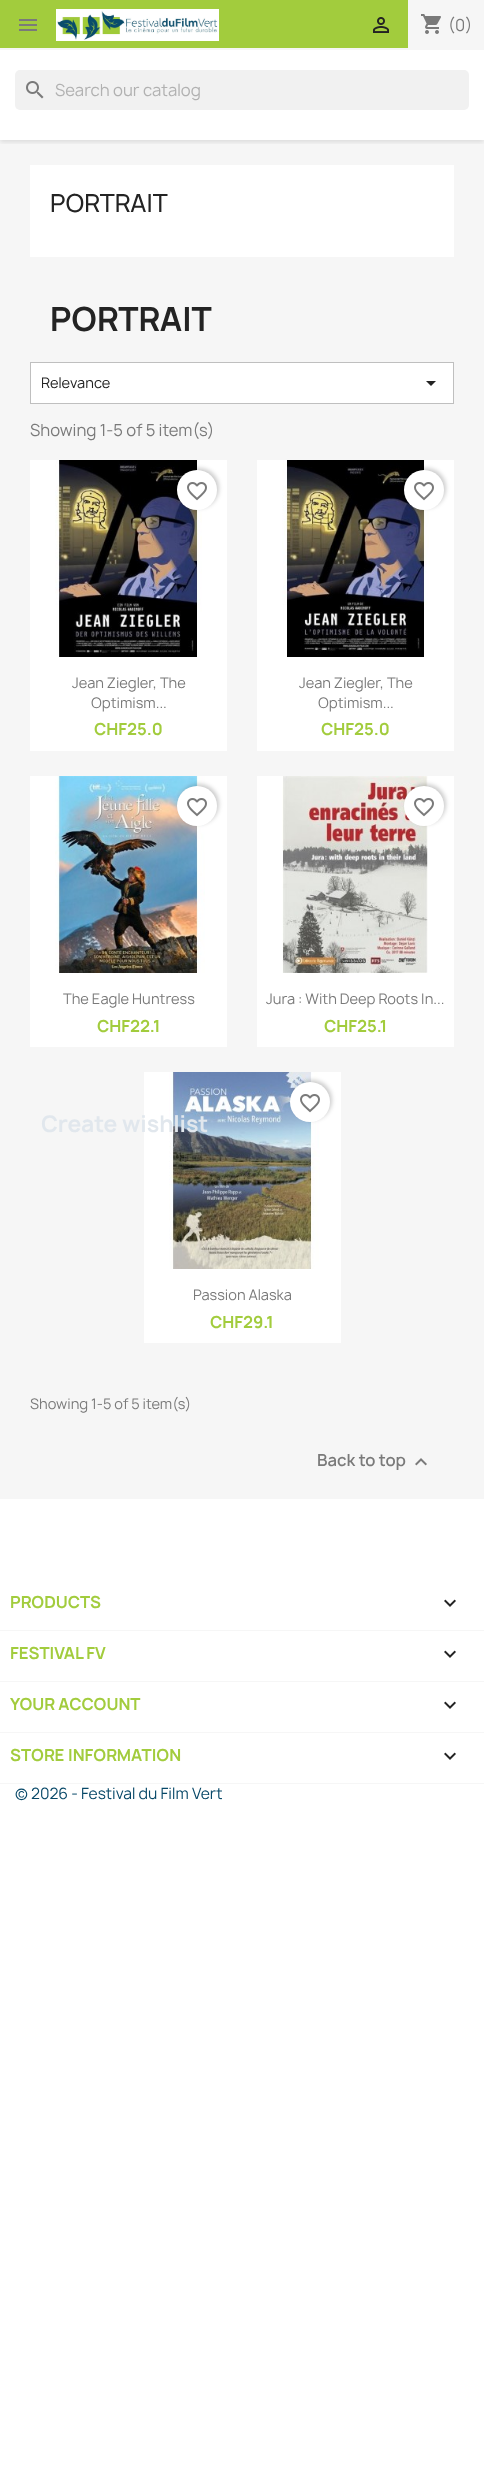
<svg xmlns="http://www.w3.org/2000/svg" xmlns:xlink="http://www.w3.org/1999/xlink" width="484" height="2472" viewBox="0 0 484 2472">
<style>
.cls-1{font:16px Manrope;fill:#7a7a7a}
.cls-2{font:16px Manrope;fill:#b1b1b1}
.cls-3{font:500 24px Manrope;fill:#232323}
.cls-4{font:bold 32px Manrope;fill:#232323}
.cls-5{font:14px Manrope;fill:#232323}
.cls-6{font:14px Manrope;fill:#7a7a7a}
.cls-7{font:bold 16px Manrope;fill:#a2cc3d}
.cls-8{font:600 16px Manrope;fill:#7a7a7a}
.cls-9{font:bold 22px Manrope;fill:#e1e7ed}
.cls-10{font:15px Manrope;fill:#074868}
</style>
<defs>
<clipPath id="clip1"><rect x="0" y="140" width="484" height="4"/></clipPath>
</defs>
<rect width="100%" height="100%" fill="#ffffff"/>
<rect fill="#f6f6f6" x="0" y="140" width="484" height="1359"/>
<g clip-path="url(#clip1)">
<rect fill="#000000" fill-opacity="0.11" filter="blur(2.5px)" x="0" y="2" width="484" height="140"/>
</g>
<rect fill="#a2cc3d" x="0" y="0" width="408" height="48"/>
<rect fill="#f6f6f6" x="0" y="48" width="484" height="2"/>
<image xlink:href="image0.png" x="19" y="19" width="18" height="12"/>
<image xlink:href="image1.png" x="56" y="9" width="163" height="32"/>
<image xlink:href="image2.png" x="373" y="17" width="16" height="16"/>
<rect fill="#f6f6f6" x="408" y="0" width="76" height="48"/>
<image xlink:href="image3.png" x="421" y="14" width="20" height="20"/>
<rect fill="#f1f1f1" x="15" y="70" width="454" height="40" rx="5"/>
<image xlink:href="image4.png" x="26" y="81" width="18" height="18"/>
<rect fill="#ffffff" x="30" y="165" width="424" height="92"/>
<rect fill="#ffffff" stroke="#bfbfbf" x="30.5" y="362.5" width="423" height="41"/>
<path fill="#232323" d="M426 381H436L431 386Z"/>
<rect fill="#ffffff" x="30" y="460" width="197" height="291"/>
<image xlink:href="image5.png" x="55" y="460" width="147" height="197"/>
<rect fill="#000000" fill-opacity="0.2" filter="blur(2px)" x="179" y="468" width="40" height="40" rx="20"/>
<circle fill="#ffffff" cx="197" cy="490" r="20"/>
<image xlink:href="image6.png" x="187" y="482" width="20" height="19"/>
<rect fill="#ffffff" x="257" y="460" width="197" height="291"/>
<image xlink:href="image7.png" x="282" y="460" width="148" height="197"/>
<rect fill="#000000" fill-opacity="0.2" filter="blur(2px)" x="406" y="468" width="40" height="40" rx="20"/>
<circle fill="#ffffff" cx="424" cy="490" r="20"/>
<image xlink:href="image6.png" x="414" y="482" width="20" height="19"/>
<rect fill="#ffffff" x="30" y="776" width="197" height="271"/>
<image xlink:href="image8.png" x="55" y="776" width="150" height="197"/>
<rect fill="#000000" fill-opacity="0.2" filter="blur(2px)" x="179" y="784" width="40" height="40" rx="20"/>
<circle fill="#ffffff" cx="197" cy="806" r="20"/>
<image xlink:href="image6.png" x="187" y="798" width="20" height="19"/>
<rect fill="#ffffff" x="257" y="776" width="197" height="271"/>
<image xlink:href="image9.png" x="282" y="776" width="146" height="197"/>
<rect fill="#000000" fill-opacity="0.2" filter="blur(2px)" x="406" y="784" width="40" height="40" rx="20"/>
<circle fill="#ffffff" cx="424" cy="806" r="20"/>
<image xlink:href="image6.png" x="414" y="798" width="20" height="19"/>
<rect fill="#ffffff" x="144" y="1072" width="197" height="271"/>
<image xlink:href="image10.png" x="169" y="1072" width="151" height="197"/>
<rect fill="#000000" fill-opacity="0.2" filter="blur(2px)" x="292" y="1080" width="40" height="40" rx="20"/>
<circle fill="#ffffff" cx="310" cy="1102" r="20"/>
<image xlink:href="image6.png" x="300" y="1094" width="20" height="19"/>
<image xlink:href="image11.png" x="415" y="1458" width="12" height="8"/>
<rect fill="#f6f6f6" x="0" y="1630" width="484" height="1"/>
<image xlink:href="image12.png" x="444" y="1599" width="12" height="8"/>
<rect fill="#f6f6f6" x="0" y="1681" width="484" height="1"/>
<image xlink:href="image12.png" x="444" y="1650" width="12" height="8"/>
<rect fill="#f6f6f6" x="0" y="1732" width="484" height="1"/>
<image xlink:href="image12.png" x="444" y="1701" width="12" height="8"/>
<rect fill="#f6f6f6" x="0" y="1783" width="484" height="1"/>
<image xlink:href="image12.png" x="444" y="1752" width="12" height="8"/>
<text class="cls-1" x="448" y="31">(0)</text>
<text class="cls-2" x="55" y="96">Search our catalog</text>
<text class="cls-3" x="50" y="212">PORTRAIT</text>
<text class="cls-4" x="50" y="331">PORTRAIT</text>
<text class="cls-5" x="41" y="388">Relevance</text>
<text class="cls-1" x="30" y="436">Showing 1-5 of 5 item(s)</text>
<text class="cls-6" x="72" y="688">Jean Ziegler, The</text>
<text class="cls-6" x="91" y="708">Optimism...</text>
<text class="cls-7" x="94" y="735">CHF25.0</text>
<text class="cls-6" x="299" y="688">Jean Ziegler, The</text>
<text class="cls-6" x="318" y="708">Optimism...</text>
<text class="cls-7" x="321" y="735">CHF25.0</text>
<text class="cls-6" x="63" y="1004">The Eagle Huntress</text>
<text class="cls-7" x="97" y="1032">CHF22.1</text>
<text class="cls-6" x="266" y="1004">Jura : With Deep Roots In...</text>
<text class="cls-7" x="324" y="1032">CHF25.1</text>
<text class="cls-6" x="193" y="1300">Passion Alaska</text>
<text class="cls-7" x="210" y="1328">CHF29.1</text>
<text class="cls-6" x="30" y="1409">Showing 1-5 of 5 item(s)</text>
<text class="cls-8" x="317" y="1466">Back to top</text>
<text class="cls-9" x="41" y="1132">Create wishlist</text>
<text class="cls-7" x="10" y="1608">PRODUCTS</text>
<text class="cls-7" x="10" y="1659">FESTIVAL FV</text>
<text class="cls-7" x="10" y="1710">YOUR ACCOUNT</text>
<text class="cls-7" x="10" y="1761">STORE INFORMATION</text>
<text class="cls-10" x="15" y="1799">© 2026 - Festival du Film Vert</text>
</svg>
